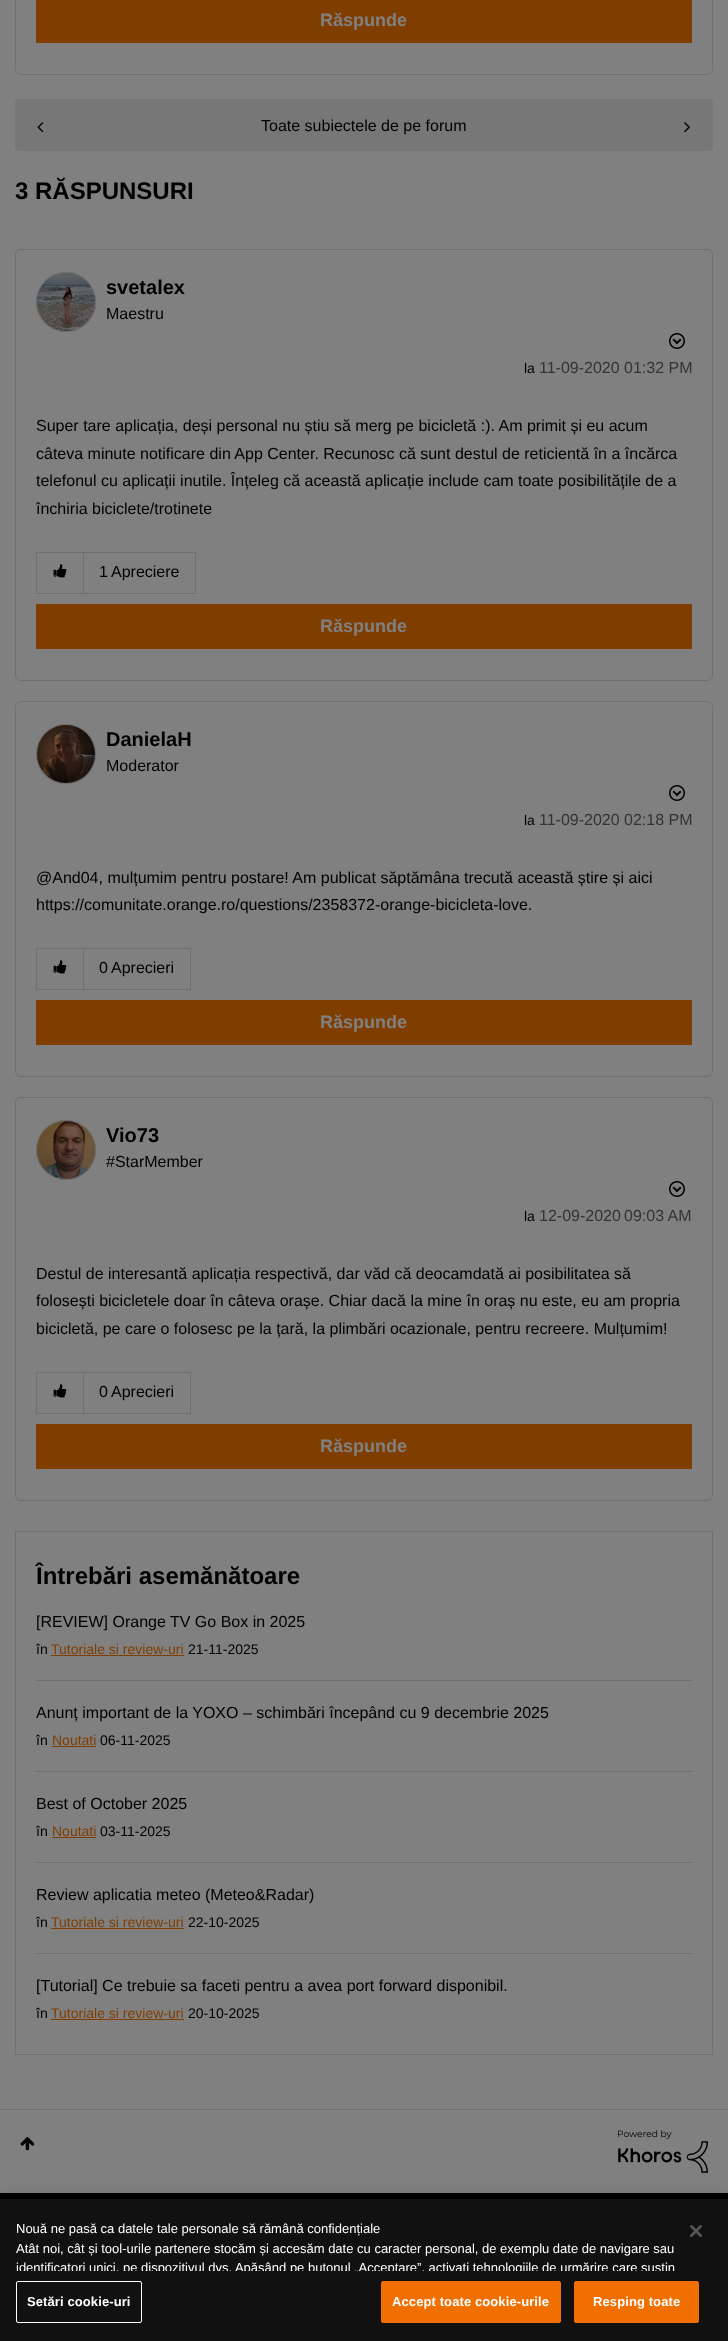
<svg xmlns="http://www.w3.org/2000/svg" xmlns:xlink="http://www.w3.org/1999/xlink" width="728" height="2341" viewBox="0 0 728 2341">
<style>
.cls-1{font:bold 18px Liberation Sans;fill:#808080}
.cls-2{font:16px Liberation Sans;fill:#000000}
.cls-3{font:bold 24px Liberation Sans;fill:#000000}
.cls-4{font:bold 20px Liberation Sans;fill:#000000}
.cls-5{font:14px Liberation Sans;fill:#000000}
.cls-6{font:16px Liberation Sans;fill:#333333}
.cls-7{font:14px Liberation Sans;fill:#803d00}
.cls-8{font:13px Liberation Sans;fill:#ffffff}
.cls-9{font:bold 13px Liberation Sans;letter-spacing:0.1px;fill:#ffffff}
</style>
<defs>
<clipPath id="clip1"><rect x="16" y="2219" width="660" height="52"/></clipPath>
</defs>
<rect width="100%" height="100%" fill="#808080"/>
<rect fill="none" stroke="#6f6f6f" x="15.5" y="-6.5" width="697" height="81" rx="5.5"/>
<rect fill="#803d00" x="36" y="0" width="656" height="43"/>
<rect fill="#777777" x="15" y="99" width="698" height="52" rx="4"/>
<image xlink:href="image0.png" x="37" y="122" width="7" height="11"/>
<image xlink:href="image1.png" x="684" y="122" width="6" height="11"/>
<rect fill="none" stroke="#6f6f6f" x="15.5" y="249.5" width="697" height="431" rx="5.5"/>
<rect fill="#626262" filter="blur(0.5px)" x="36" y="272" width="60" height="60" rx="30"/>
<circle fill="none" stroke="#6f6f6f" cx="66" cy="302" r="29.5"/>
<image xlink:href="image2.png" x="37" y="273" width="58" height="58"/>
<image xlink:href="image3.png" x="669" y="333" width="16" height="16"/>
<rect fill="none" stroke="#6f6f6f" x="36.5" y="552.5" width="159" height="41"/>
<rect fill="#6f6f6f" x="83" y="553" width="1" height="40"/>
<image xlink:href="image4.png" x="53" y="564" width="14" height="14"/>
<rect fill="#803d00" x="36" y="604" width="656" height="45"/>
<rect fill="none" stroke="#6f6f6f" x="15.5" y="701.5" width="697" height="375" rx="5.5"/>
<rect fill="#626262" filter="blur(0.5px)" x="36" y="724" width="60" height="60" rx="30"/>
<circle fill="none" stroke="#6f6f6f" cx="66" cy="754" r="29.5"/>
<image xlink:href="image5.png" x="37" y="725" width="58" height="58"/>
<image xlink:href="image3.png" x="669" y="785" width="16" height="16"/>
<rect fill="none" stroke="#6f6f6f" x="36.5" y="948.5" width="154" height="41"/>
<rect fill="#6f6f6f" x="83" y="949" width="1" height="40"/>
<image xlink:href="image4.png" x="53" y="960" width="14" height="14"/>
<rect fill="#803d00" x="36" y="1000" width="656" height="45"/>
<rect fill="none" stroke="#6f6f6f" x="15.5" y="1097.5" width="697" height="403" rx="5.5"/>
<rect fill="#626262" filter="blur(0.5px)" x="36" y="1120" width="60" height="60" rx="30"/>
<circle fill="none" stroke="#6f6f6f" cx="66" cy="1150" r="29.5"/>
<image xlink:href="image6.png" x="37" y="1121" width="58" height="58"/>
<image xlink:href="image3.png" x="669" y="1181" width="16" height="16"/>
<rect fill="none" stroke="#6f6f6f" x="36.5" y="1372.5" width="154" height="41"/>
<rect fill="#6f6f6f" x="83" y="1373" width="1" height="40"/>
<image xlink:href="image4.png" x="53" y="1384" width="14" height="14"/>
<rect fill="#803d00" x="36" y="1424" width="656" height="45"/>
<rect fill="none" stroke="#6f6f6f" x="15.5" y="1531.5" width="697" height="523"/>
<rect fill="#6f6f6f" x="36" y="1680" width="656" height="1"/>
<rect fill="#803d00" x="51" y="1655" width="133" height="1"/>
<rect fill="#6f6f6f" x="36" y="1771" width="656" height="1"/>
<rect fill="#803d00" x="52" y="1746" width="44" height="1"/>
<rect fill="#6f6f6f" x="36" y="1862" width="656" height="1"/>
<rect fill="#803d00" x="52" y="1837" width="44" height="1"/>
<rect fill="#6f6f6f" x="36" y="1953" width="656" height="1"/>
<rect fill="#803d00" x="51" y="1928" width="133" height="1"/>
<rect fill="#803d00" x="51" y="2019" width="133" height="1"/>
<rect fill="#6f6f6f" x="0" y="2109" width="728" height="1"/>
<image xlink:href="image7.png" x="20" y="2137" width="15" height="14"/>
<image xlink:href="image8.png" x="618" y="2130" width="90" height="43"/>
<rect fill="#000000" x="0" y="2193" width="728" height="6"/>
<rect fill="#000000" fill-opacity="0.2" filter="blur(9px)" x="0" y="2199" width="728" height="142"/>
<rect fill="#111111" x="0" y="2199" width="728" height="142"/>
<rect fill="none" stroke="#ffffff" x="16.5" y="2281.5" width="125" height="41" rx="1.5"/>
<rect fill="#f16e00" stroke="#f16e00" x="381.5" y="2281.5" width="179" height="41" rx="1.5"/>
<rect fill="#f16e00" stroke="#f16e00" x="574.5" y="2281.5" width="124" height="41" rx="1.5"/>
<image xlink:href="image9.png" x="690" y="2225" width="12" height="12"/>
<text class="cls-1" x="320" y="26">Răspunde</text>
<text class="cls-2" x="261" y="131">Toate subiectele de pe forum</text>
<text class="cls-3" x="15" y="199">3 RĂSPUNSURI</text>
<text class="cls-4" x="106" y="294">svetalex</text>
<text class="cls-2" x="106" y="319">Maestru</text>
<text class="cls-5" x="524" y="373">la</text>
<text class="cls-6" x="539" y="373">11-09-2020</text>
<text class="cls-6" x="624" y="373">01:32 PM</text>
<text class="cls-2"><tspan x="36" y="431">Super tare aplicația, deși personal nu știu să merg pe bicicletă :). Am primit și eu acum</tspan><tspan x="36" y="459">câteva minute notificare din App Center. Recunosc că sunt destul de reticientă în a încărca</tspan><tspan x="36" y="486">telefonul cu aplicații inutile. Înțeleg că această aplicație include cam toate posibilitățile de a</tspan><tspan x="36" y="514">închiria biciclete/trotinete</tspan></text>
<text class="cls-2" x="99" y="577">1</text>
<text class="cls-2" x="111" y="577">Apreciere</text>
<text class="cls-1" x="320" y="632">Răspunde</text>
<text class="cls-4" x="106" y="746">DanielaH</text>
<text class="cls-2" x="106" y="771">Moderator</text>
<text class="cls-5" x="524" y="825">la</text>
<text class="cls-6" x="539" y="825">11-09-2020</text>
<text class="cls-6" x="624" y="825">02:18 PM</text>
<text class="cls-2"><tspan x="36" y="883">@And04, mulțumim pentru postare! Am publicat săptămâna trecută această știre și aici</tspan><tspan x="36" y="910">https://comunitate.orange.ro/questions/2358372-orange-bicicleta-love.</tspan></text>
<text class="cls-2" x="99" y="973">0</text>
<text class="cls-2" x="111" y="973">Aprecieri</text>
<text class="cls-1" x="320" y="1028">Răspunde</text>
<text class="cls-4" x="106" y="1142">Vio73</text>
<text class="cls-2" x="106" y="1167">#StarMember</text>
<text class="cls-5" x="524" y="1221">la</text>
<text class="cls-6" x="539" y="1221">12-09-2020</text>
<text class="cls-6" x="624" y="1221">09:03 AM</text>
<text class="cls-2"><tspan x="36" y="1279">Destul de interesantă aplicația respectivă, dar văd că deocamdată ai posibilitatea să</tspan><tspan x="36" y="1306">folosești bicicletele doar în câteva orașe. Chiar dacă la mine în oraș nu este, eu am propria</tspan><tspan x="36" y="1334">bicicletă, pe care o folosesc pe la țară, la plimbări ocazionale, pentru recreere. Mulțumim!</tspan></text>
<text class="cls-2" x="99" y="1397">0</text>
<text class="cls-2" x="111" y="1397">Aprecieri</text>
<text class="cls-1" x="320" y="1452">Răspunde</text>
<text class="cls-3" x="36" y="1584">Întrebări asemănătoare</text>
<text class="cls-2" x="36" y="1627">[REVIEW] Orange TV Go Box in 2025</text>
<text class="cls-5" x="36" y="1654">în</text>
<text class="cls-7" x="51" y="1654">Tutoriale si review-uri</text>
<text class="cls-5" x="188" y="1654">21-11-2025</text>
<text class="cls-2" x="36" y="1718">Anunț important de la YOXO – schimbări începând cu 9 decembrie 2025</text>
<text class="cls-5" x="36" y="1745">în</text>
<text class="cls-7" x="52" y="1745">Noutati</text>
<text class="cls-5" x="100" y="1745">06-11-2025</text>
<text class="cls-2" x="36" y="1809">Best of October 2025</text>
<text class="cls-5" x="36" y="1836">în</text>
<text class="cls-7" x="52" y="1836">Noutati</text>
<text class="cls-5" x="100" y="1836">03-11-2025</text>
<text class="cls-2" x="36" y="1900">Review aplicatia meteo (Meteo&amp;Radar)</text>
<text class="cls-5" x="36" y="1927">în</text>
<text class="cls-7" x="51" y="1927">Tutoriale si review-uri</text>
<text class="cls-5" x="188" y="1927">22-10-2025</text>
<text class="cls-2" x="36" y="1991">[Tutorial] Ce trebuie sa faceti pentru a avea port forward disponibil.</text>
<text class="cls-5" x="36" y="2018">în</text>
<text class="cls-7" x="51" y="2018">Tutoriale si review-uri</text>
<text class="cls-5" x="188" y="2018">20-10-2025</text>
<text class="cls-8"><tspan x="16" y="2233">Nouă ne pasă ca datele tale personale să rămână confidențiale</tspan><tspan x="16" y="2253">Atât noi, cât și tool-urile partenere stocăm și accesăm date cu caracter personal, de exemplu date de navigare sau</tspan></text>
<g clip-path="url(#clip1)">
<text class="cls-8" x="16" y="2272">identificatori unici, pe dispozitivul dvs. Apăsând pe butonul „Acceptare”, activați tehnologiile de urmărire care susțin</text>
</g>
<text class="cls-9" x="27" y="2306">Setări cookie-uri</text>
<text class="cls-9" x="392" y="2306">Accept toate cookie-urile</text>
<text class="cls-9" x="593" y="2306">Resping toate</text>
</svg>
